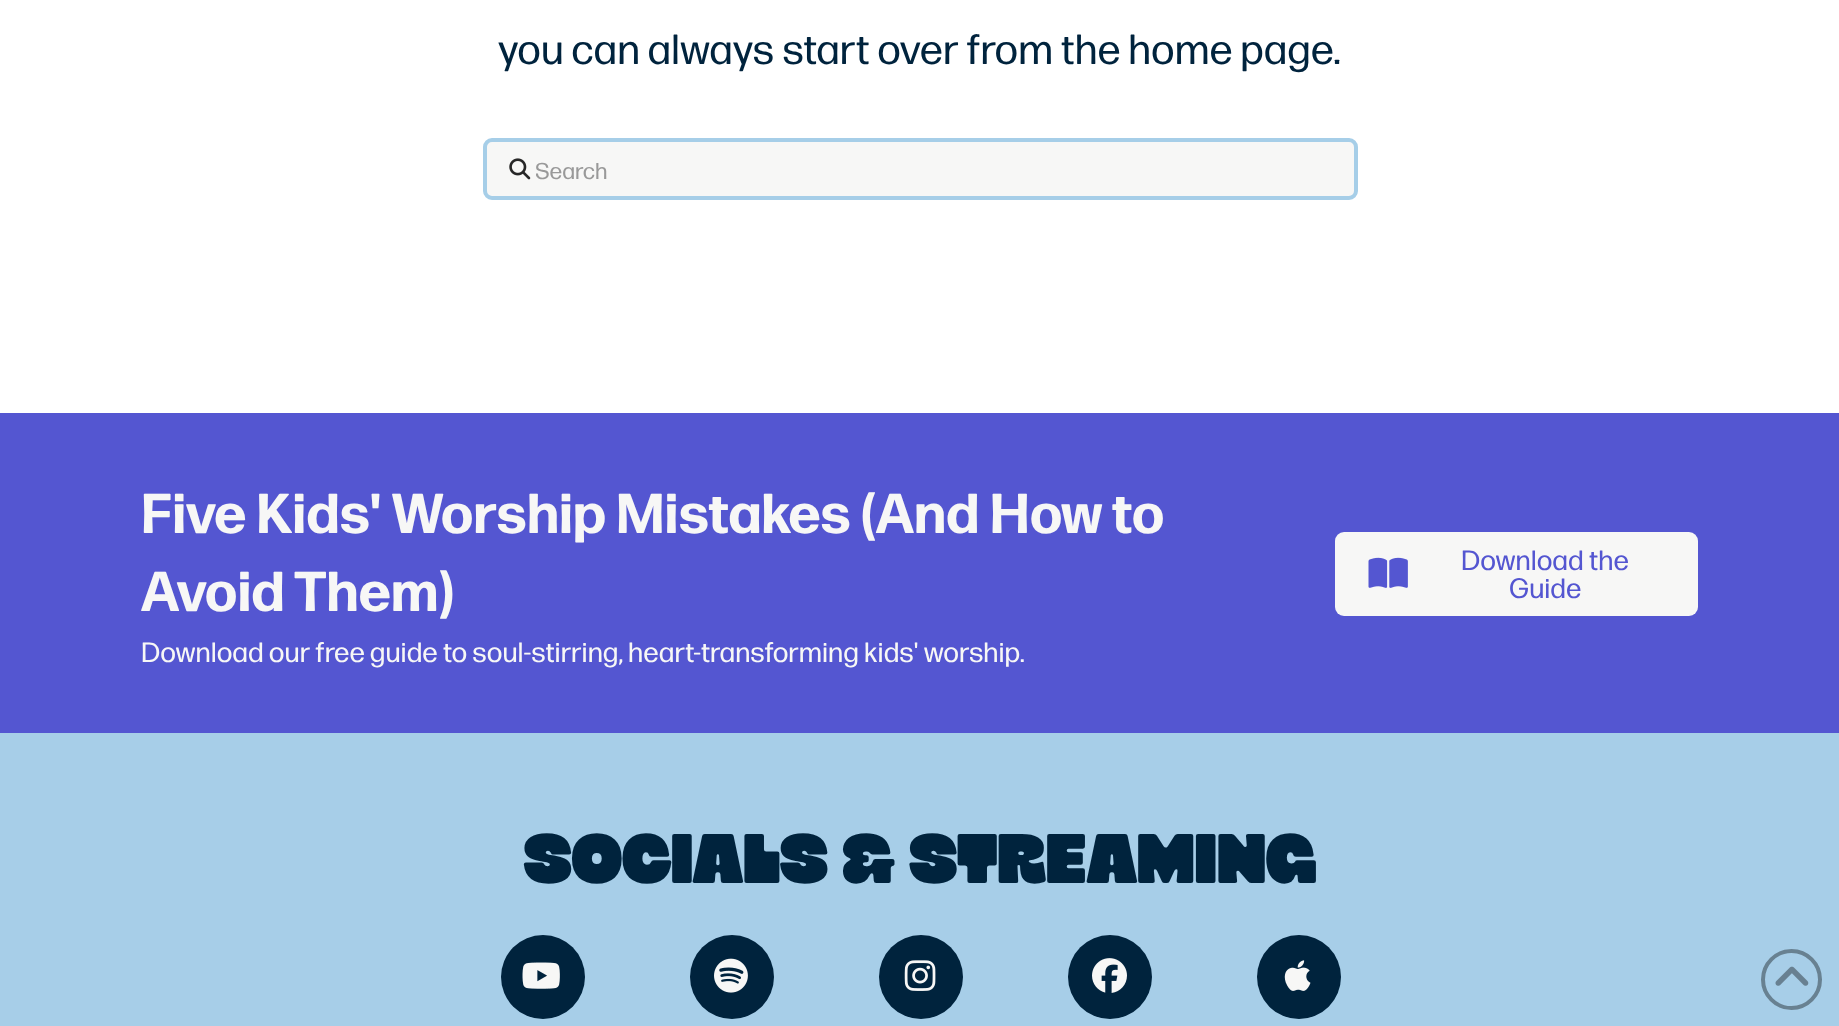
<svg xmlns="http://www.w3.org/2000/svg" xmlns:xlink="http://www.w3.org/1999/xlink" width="1839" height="1026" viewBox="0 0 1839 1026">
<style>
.cls-1{font:42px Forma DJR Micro;fill:#00233d}
.cls-2{font:23px Forma DJR Micro;fill:#999999}
.cls-3{font:bold 56px Forma DJR Micro;fill:#f7f7f6}
.cls-4{font:28px Forma DJR Micro;fill:#f7f7f6}
.cls-5{font:28px Forma DJR Micro;fill:#5456d1}
.cls-6{font:bold 70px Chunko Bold;fill:#00233d}
</style>
<defs>
<clipPath id="clip1"><rect x="536" y="154" width="803" height="30"/></clipPath>
</defs>
<rect width="100%" height="100%" fill="#ffffff"/>
<rect fill="#f7f7f6" stroke="#a6cee8" stroke-width="4" x="485" y="140" width="871" height="58" rx="7"/>
<image xlink:href="image0.png" x="509" y="158" width="22" height="22"/>
<rect fill="#5456d1" x="0" y="413" width="1839" height="320"/>
<rect fill="#f7f7f6" x="1335" y="532" width="363" height="84" rx="9"/>
<image xlink:href="image1.png" x="1368" y="557" width="40" height="31"/>
<rect fill="#a7cee8" x="0" y="733" width="1839" height="293"/>
<circle fill="#00233d" cx="543" cy="977" r="42"/>
<image xlink:href="image2.png" x="522" y="962" width="38" height="27"/>
<circle fill="#00233d" cx="732" cy="977" r="42"/>
<image xlink:href="image3.png" x="714" y="958" width="34" height="35"/>
<circle fill="#00233d" cx="921" cy="977" r="42"/>
<image xlink:href="image4.png" x="904" y="960" width="32" height="31"/>
<circle fill="#00233d" cx="1110" cy="977" r="42"/>
<image xlink:href="image5.png" x="1092" y="958" width="35" height="35"/>
<circle fill="#00233d" cx="1299" cy="977" r="42"/>
<image xlink:href="image6.png" x="1284" y="960" width="27" height="31"/>
<circle fill="none" stroke="#688191" stroke-width="4" cx="1791.5" cy="979.5" r="28.5"/>
<image xlink:href="image7.png" x="1775" y="966" width="34" height="20"/>
<text class="cls-1" x="498" y="64">you can always start over from the home page.</text>
<g clip-path="url(#clip1)">
<text class="cls-2" x="535" y="179">Search</text>
</g>
<text class="cls-3"><tspan x="141" y="533">Five Kids' Worship Mistakes (And How to</tspan><tspan x="141" y="611">Avoid Them)</tspan></text>
<text class="cls-4" x="141" y="662">Download our free guide to soul-stirring, heart-transforming kids' worship.</text>
<text class="cls-5" x="1461" y="570">Download the</text>
<text class="cls-5" x="1509" y="598">Guide</text>
<text class="cls-6" x="523" y="883">SOCIALS &amp; STREAMING</text>
</svg>
